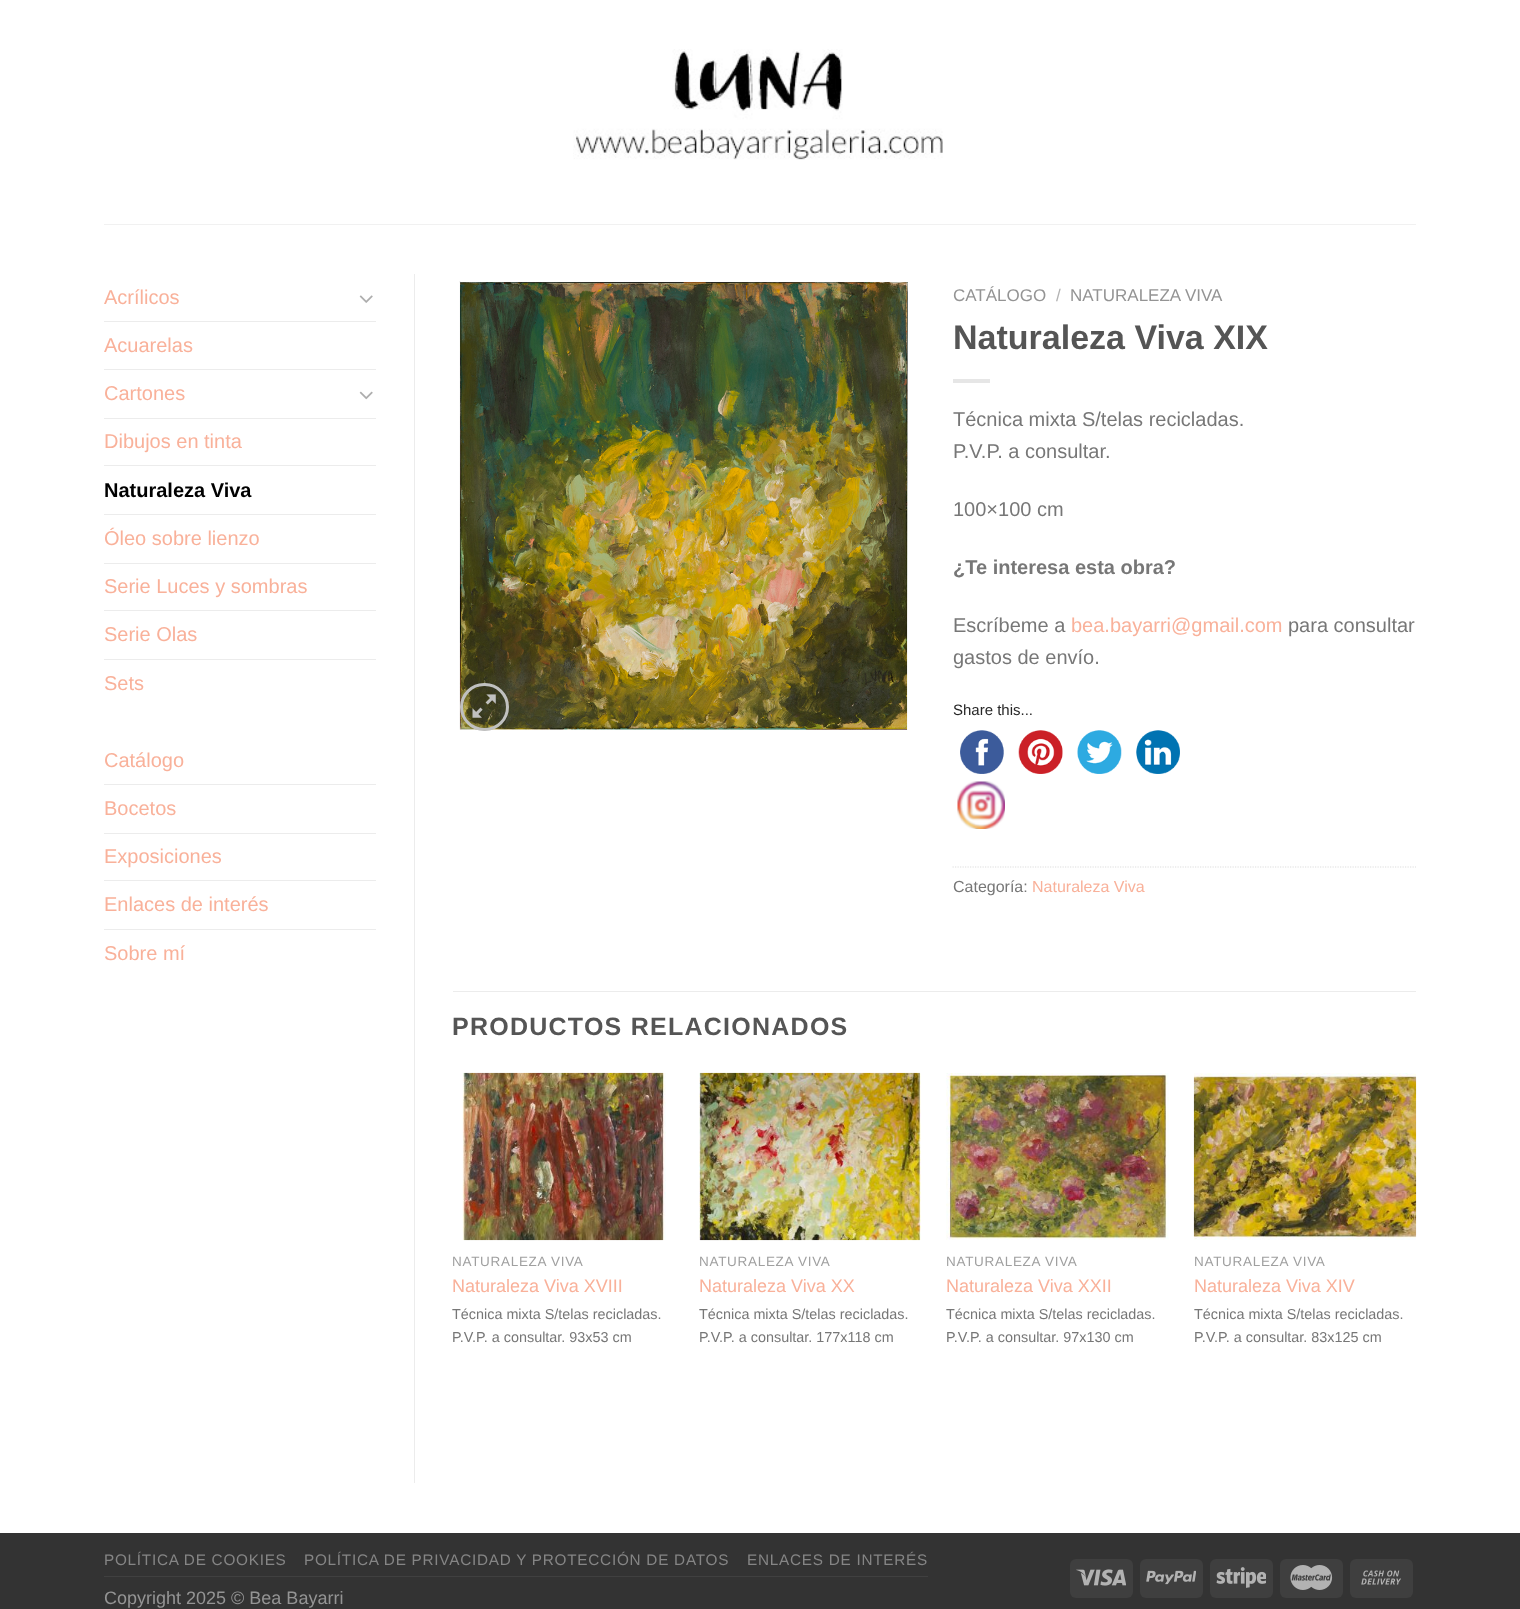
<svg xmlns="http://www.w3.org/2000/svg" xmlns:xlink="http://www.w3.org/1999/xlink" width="1520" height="1609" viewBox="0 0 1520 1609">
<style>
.cls-1{font:20px Liberation Sans;fill:#f9b19a}
.cls-2{font:bold 20px Liberation Sans;fill:#000000}
.cls-3{font:17px Liberation Sans;fill:#949494}
.cls-4{font:17px Liberation Sans;fill:#b2b2b2}
.cls-5{font:bold 34px Liberation Sans;fill:#555555}
.cls-6{font:20px Liberation Sans;fill:#777777}
.cls-7{font:bold 20px Liberation Sans;fill:#777777}
.cls-8{font:15px Liberation Sans;fill:#272727}
.cls-9{font:16px Liberation Sans;fill:#777777}
.cls-10{font:16px Liberation Sans;fill:#f9b19a}
.cls-11{font:bold 25px Liberation Sans;letter-spacing:1.25px;fill:#555555}
.cls-12{font:13.5px Liberation Sans;letter-spacing:0.7px;fill:#a0a0a0}
.cls-13{font:18px Liberation Sans;fill:#f9b19a}
.cls-14{font:14.4px Liberation Sans;fill:#777777}
.cls-15{font:15.3px Liberation Sans;letter-spacing:0.75px;fill:#858585}
.cls-16{font:18px Liberation Sans;fill:#949494}
</style>
<rect width="100%" height="100%" fill="#ffffff"/>
<image xlink:href="image0.png" x="573" y="49" width="370" height="111"/>
<rect fill="#f1f1f1" x="104" y="224" width="1312" height="1"/>
<image xlink:href="image1.png" x="359" y="295" width="14" height="8"/>
<rect fill="#ececec" x="104" y="321" width="272" height="1"/>
<rect fill="#ececec" x="104" y="369" width="272" height="1"/>
<image xlink:href="image2.png" x="359" y="391" width="14" height="9"/>
<rect fill="#ececec" x="104" y="418" width="272" height="1"/>
<rect fill="#ececec" x="104" y="465" width="272" height="1"/>
<rect fill="#ececec" x="104" y="514" width="272" height="1"/>
<rect fill="#ececec" x="104" y="563" width="272" height="1"/>
<rect fill="#ececec" x="104" y="610" width="272" height="1"/>
<rect fill="#ececec" x="104" y="659" width="272" height="1"/>
<rect fill="#ececec" x="104" y="784" width="272" height="1"/>
<rect fill="#ececec" x="104" y="833" width="272" height="1"/>
<rect fill="#ececec" x="104" y="880" width="272" height="1"/>
<rect fill="#ececec" x="104" y="929" width="272" height="1"/>
<rect fill="#ececec" x="414" y="274" width="1" height="1209"/>
<image xlink:href="image3.png" x="459" y="281" width="449" height="449"/>
<rect fill="none" stroke="#c0c0c0" stroke-width="3" x="461.5" y="684.5" width="46" height="45" rx="22.5"/>
<image xlink:href="image4.png" x="472" y="694" width="24" height="24"/>
<rect fill="#e6e6e6" x="953" y="379" width="37" height="4"/>
<image xlink:href="image5.png" x="960" y="730" width="44" height="44"/>
<image xlink:href="image6.png" x="1018" y="730" width="45" height="44"/>
<image xlink:href="image7.png" x="1077" y="730" width="45" height="44"/>
<image xlink:href="image8.png" x="1136" y="730" width="44" height="44"/>
<image xlink:href="image9.png" x="957" y="781" width="48" height="48"/>
<path fill="none" stroke="#dddddd" stroke-width="1.2" stroke-dasharray="1.25 1.25" d="M952.5 867H1416"/>
<rect fill="#ececec" x="453" y="991" width="963" height="1"/>
<image xlink:href="image10.png" x="462" y="1072" width="204" height="169"/>
<image xlink:href="image11.png" x="699" y="1072" width="222" height="169"/>
<image xlink:href="image12.png" x="946" y="1073" width="223" height="167"/>
<image xlink:href="image13.png" x="1193" y="1073" width="224" height="167"/>
<rect fill="#333333" x="0" y="1533" width="1520" height="76"/>
<rect fill="#404040" x="104" y="1576" width="824" height="1"/>
<rect fill="#3f3f3f" x="1070" y="1559" width="63" height="39" rx="6"/>
<image xlink:href="image14.png" x="1076" y="1569" width="50" height="17"/>
<rect fill="#3f3f3f" x="1140" y="1559" width="63" height="39" rx="6"/>
<image xlink:href="image15.png" x="1146" y="1570" width="50" height="15"/>
<rect fill="#3f3f3f" x="1210" y="1559" width="63" height="39" rx="6"/>
<image xlink:href="image16.png" x="1216" y="1567" width="50" height="21"/>
<rect fill="#3f3f3f" x="1280" y="1559" width="63" height="39" rx="6"/>
<image xlink:href="image17.png" x="1290" y="1565" width="43" height="25"/>
<rect fill="#3f3f3f" x="1350" y="1559" width="63" height="39" rx="6"/>
<image xlink:href="image18.png" x="1361" y="1570" width="40" height="15"/>
<text class="cls-1" x="104" y="304">Acrílicos</text>
<text class="cls-1" x="104" y="352">Acuarelas</text>
<text class="cls-1" x="104" y="400">Cartones</text>
<text class="cls-1" x="104" y="448">Dibujos en tinta</text>
<text class="cls-2" x="104" y="497">Naturaleza Viva</text>
<text class="cls-1" x="104" y="545">Óleo sobre lienzo</text>
<text class="cls-1" x="104" y="593">Serie Luces y sombras</text>
<text class="cls-1" x="104" y="641">Serie Olas</text>
<text class="cls-1" x="104" y="690">Sets</text>
<text class="cls-1" x="104" y="767">Catálogo</text>
<text class="cls-1" x="104" y="815">Bocetos</text>
<text class="cls-1" x="104" y="863">Exposiciones</text>
<text class="cls-1" x="104" y="911">Enlaces de interés</text>
<text class="cls-1" x="104" y="960">Sobre mí</text>
<text class="cls-3" x="953" y="301">CATÁLOGO</text>
<text class="cls-4" x="1056" y="301">/</text>
<text class="cls-3" x="1070" y="301">NATURALEZA VIVA</text>
<text class="cls-5" x="953" y="349">Naturaleza Viva XIX</text>
<text class="cls-6"><tspan x="953" y="426">Técnica mixta S/telas recicladas.</tspan><tspan x="953" y="458">P.V.P. a consultar.</tspan></text>
<text class="cls-6" x="953" y="516">100×100 cm</text>
<text class="cls-7" x="953" y="574">¿Te interesa esta obra?</text>
<text class="cls-6" x="953" y="632">Escríbeme a</text>
<text class="cls-1" x="1071" y="632">bea.bayarri@gmail.com</text>
<text class="cls-6" x="1288" y="632">para consultar</text>
<text class="cls-6" x="953" y="664">gastos de envío.</text>
<text class="cls-8" x="953" y="715">Share this...</text>
<text class="cls-9" x="953" y="892">Categoría:</text>
<text class="cls-10" x="1032" y="892">Naturaleza Viva</text>
<text class="cls-11" x="452" y="1035">PRODUCTOS RELACIONADOS</text>
<text class="cls-12" x="452" y="1266">NATURALEZA VIVA</text>
<text class="cls-13" x="452" y="1292">Naturaleza Viva XVIII</text>
<text class="cls-14"><tspan x="452" y="1319">Técnica mixta S/telas recicladas.</tspan><tspan x="452" y="1342">P.V.P. a consultar. 93x53 cm</tspan></text>
<text class="cls-12" x="699" y="1266">NATURALEZA VIVA</text>
<text class="cls-13" x="699" y="1292">Naturaleza Viva XX</text>
<text class="cls-14"><tspan x="699" y="1319">Técnica mixta S/telas recicladas.</tspan><tspan x="699" y="1342">P.V.P. a consultar. 177x118 cm</tspan></text>
<text class="cls-12" x="946" y="1266">NATURALEZA VIVA</text>
<text class="cls-13" x="946" y="1292">Naturaleza Viva XXII</text>
<text class="cls-14"><tspan x="946" y="1319">Técnica mixta S/telas recicladas.</tspan><tspan x="946" y="1342">P.V.P. a consultar. 97x130 cm</tspan></text>
<text class="cls-12" x="1194" y="1266">NATURALEZA VIVA</text>
<text class="cls-13" x="1194" y="1292">Naturaleza Viva XIV</text>
<text class="cls-14"><tspan x="1194" y="1319">Técnica mixta S/telas recicladas.</tspan><tspan x="1194" y="1342">P.V.P. a consultar. 83x125 cm</tspan></text>
<text class="cls-15" x="104" y="1565">POLÍTICA DE COOKIES</text>
<text class="cls-15" x="304" y="1565">POLÍTICA DE PRIVACIDAD Y PROTECCIÓN DE DATOS</text>
<text class="cls-15" x="747" y="1565">ENLACES DE INTERÉS</text>
<text class="cls-16" x="104" y="1604">Copyright 2025 © Bea Bayarri</text>
</svg>
